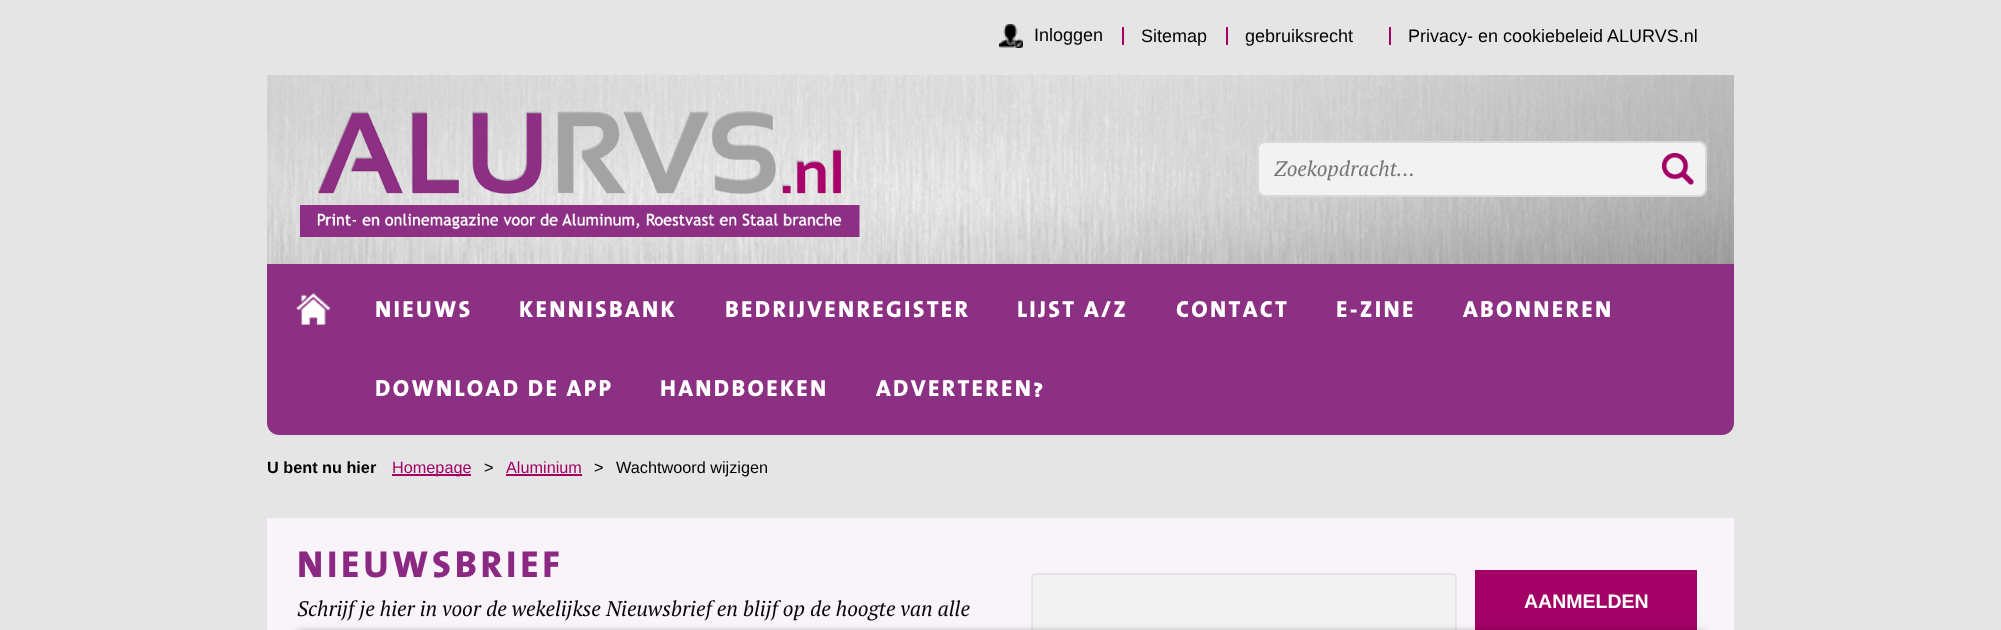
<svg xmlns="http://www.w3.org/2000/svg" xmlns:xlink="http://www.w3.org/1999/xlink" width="2001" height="630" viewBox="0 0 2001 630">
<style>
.cls-1{font:18px Liberation Sans;fill:#000000}
.cls-2{font:italic 21px PT Serif;fill:#757575}
.cls-3{font:800 23.4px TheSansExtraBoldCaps;letter-spacing:2.3px;fill:#ffffff}
.cls-4{font:bold 16.25px Liberation Sans;fill:#000000}
.cls-5{font:16.25px Liberation Sans;fill:#a20065}
.cls-6{font:16.25px Liberation Sans;fill:#000000}
.cls-7{font:800 37.75px TheSansExtraBoldCaps;letter-spacing:3.75px;fill:#8b2882}
.cls-8{font:italic 21px PT Serif;fill:#070207}
.cls-9{font:bold 19.5px Liberation Sans;fill:#ffffff}
</style>
<rect width="100%" height="100%" fill="#e5e5e5"/>
<image xlink:href="image0.png" x="999" y="24" width="24" height="24"/>
<rect fill="#a20065" x="1122" y="27" width="2" height="18"/>
<rect fill="#a20065" x="1226" y="27" width="2" height="18"/>
<rect fill="#a20065" x="1389" y="27" width="2" height="18"/>
<image xlink:href="image1.png" x="267" y="75" width="1467" height="189"/>
<image xlink:href="image2.png" x="300" y="111" width="560" height="126"/>
<rect fill="#f2f2f2" x="1257" y="141" width="450" height="56" rx="8"/>
<rect fill="none" stroke="#000000" stroke-opacity="0.1" stroke-width="2" x="1258" y="142" width="448" height="54" rx="7"/>
<image xlink:href="image3.png" x="1662" y="153" width="32" height="32"/>
<path fill="#8c3083" d="M267 264H1734V423C1734 429.5 1728.5 435 1722 435H279C272.5 435 267 429.5 267 423Z"/>
<image xlink:href="image4.png" x="296" y="293" width="35" height="32"/>
<rect fill="#a20065" x="392" y="474" width="79" height="2"/>
<rect fill="#a20065" x="506" y="474" width="76" height="2"/>
<rect fill="#f9f4f9" x="267" y="518" width="1467" height="112"/>
<rect fill="#f2f2f2" stroke="#e5e5e5" stroke-width="2" x="1032" y="574" width="424" height="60" rx="3"/>
<rect fill="#a20065" x="1475" y="570" width="222" height="60"/>
<rect fill="#000000" fill-opacity="0.5" filter="blur(4px)" x="297" y="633" width="1407" height="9"/>
<text class="cls-1" x="1034" y="41">Inloggen</text>
<text class="cls-1" x="1141" y="42">Sitemap</text>
<text class="cls-1" x="1245" y="42">gebruiksrecht</text>
<text class="cls-1" x="1408" y="42">Privacy- en cookiebeleid ALURVS.nl</text>
<text class="cls-2" x="1274" y="176">Zoekopdracht...</text>
<text class="cls-3" x="375" y="317">NIEUWS</text>
<text class="cls-3" x="519" y="317">KENNISBANK</text>
<text class="cls-3" x="725" y="317">BEDRIJVENREGISTER</text>
<text class="cls-3" x="1017" y="317">LIJST A/Z</text>
<text class="cls-3" x="1176" y="317">CONTACT</text>
<text class="cls-3" x="1336" y="317">E-ZINE</text>
<text class="cls-3" x="1463" y="317">ABONNEREN</text>
<text class="cls-3" x="375" y="396">DOWNLOAD DE APP</text>
<text class="cls-3" x="660" y="396">HANDBOEKEN</text>
<text class="cls-3" x="876" y="396">ADVERTEREN?</text>
<text class="cls-4" x="267" y="473">U bent nu hier</text>
<text class="cls-5" x="392" y="473">Homepage</text>
<text class="cls-6" x="484" y="473">&gt;</text>
<text class="cls-5" x="506" y="473">Aluminium</text>
<text class="cls-6" x="594" y="473">&gt;</text>
<text class="cls-6" x="616" y="473">Wachtwoord wijzigen</text>
<text class="cls-7" x="297" y="577">NIEUWSBRIEF</text>
<text class="cls-8" x="297" y="616">Schrijf je hier in voor de wekelijkse Nieuwsbrief en blijf op de hoogte van alle</text>
<text class="cls-9" x="1524" y="608">AANMELDEN</text>
</svg>
